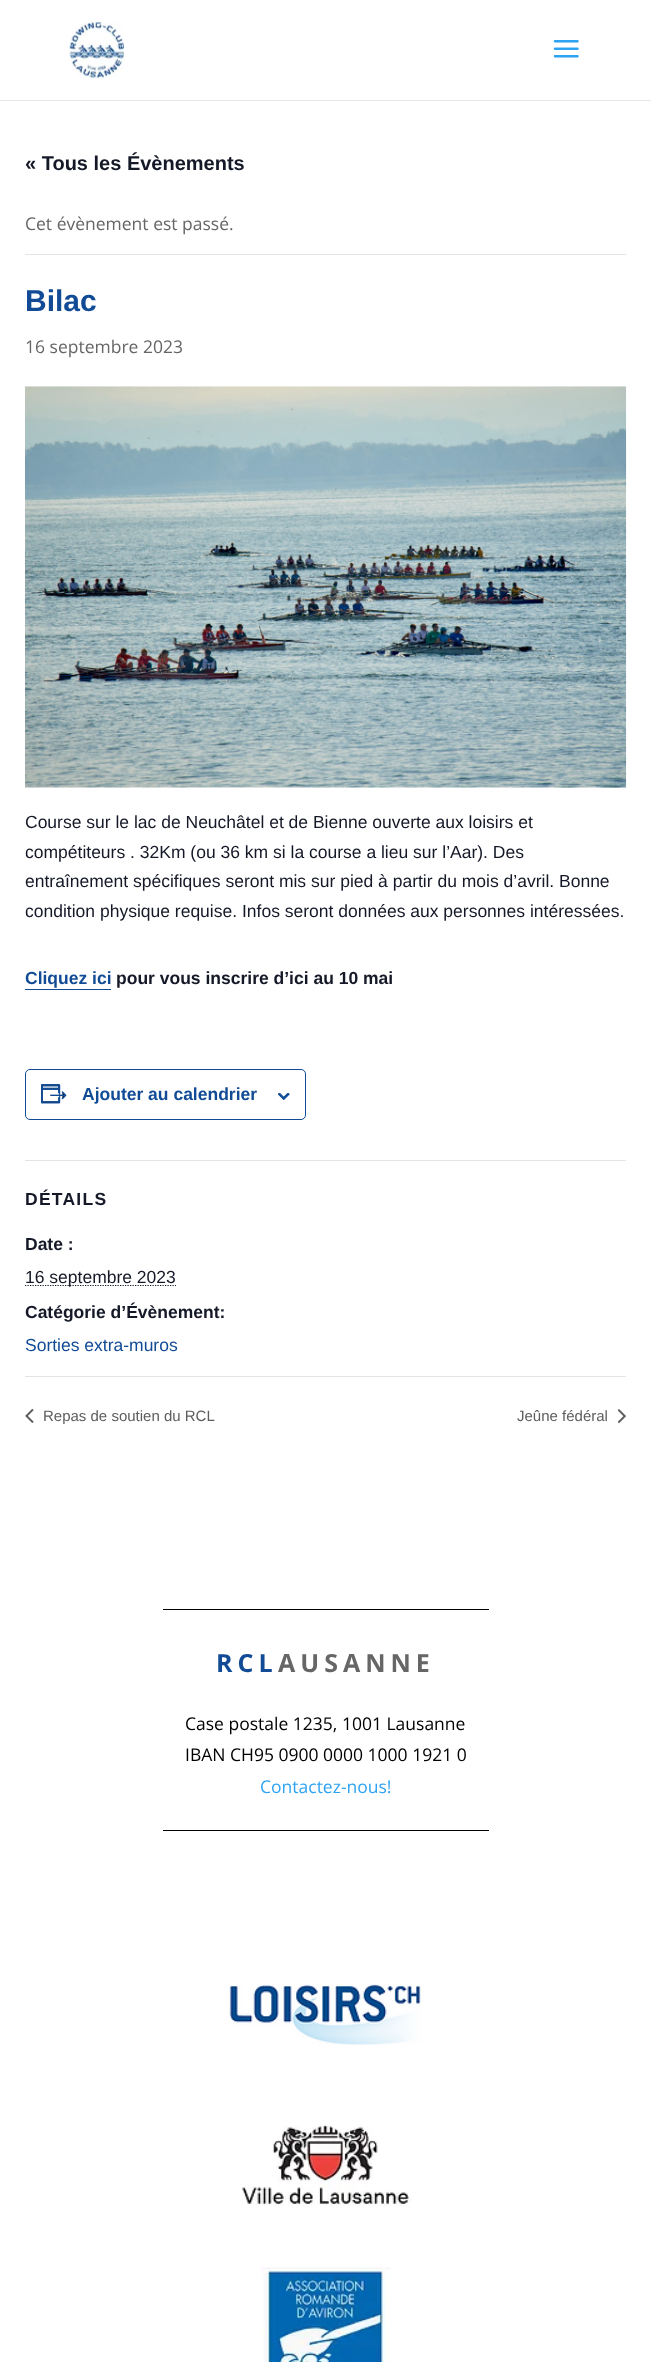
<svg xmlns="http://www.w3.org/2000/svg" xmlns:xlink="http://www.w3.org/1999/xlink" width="651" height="2362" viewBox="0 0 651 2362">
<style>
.cls-1{font:bold 20px Liberation Sans;fill:#141827}
.cls-2{font:17.5px Open Sans;fill:#666666}
.cls-3{font:bold 30px Liberation Sans;fill:#114b95}
.cls-4{font:17.5px Liberation Sans;fill:#141827}
.cls-5{font:bold 17.5px Liberation Sans;fill:#114b95}
.cls-6{font:bold 17.5px Liberation Sans;fill:#141827}
.cls-7{font:bold 17.5px Liberation Sans;letter-spacing:1.25px;fill:#141827}
.cls-8{font:17.5px Liberation Sans;fill:#114b95}
.cls-9{font:15px Liberation Sans;fill:#5d5d5d}
.cls-10{font:bold 25px Open Sans;letter-spacing:5px;fill:#114b95}
.cls-11{font:bold 25px Open Sans;letter-spacing:5px;fill:#666666}
.cls-12{font:17.5px Open Sans;fill:#000000}
.cls-13{font:17.5px Open Sans;fill:#2ea3f2}
</style>
<rect width="100%" height="100%" fill="#ffffff"/>
<rect fill="#e6e6e6" x="0" y="100" width="651" height="1"/>
<image xlink:href="image0.png" x="69" y="22" width="55" height="56"/>
<image xlink:href="image1.png" x="553" y="40" width="26" height="18"/>
<rect fill="#e4e4e4" x="25" y="254" width="601" height="1"/>
<image xlink:href="image2.png" x="25" y="386" width="602" height="402"/>
<rect fill="#114b95" x="25" y="989" width="86" height="1"/>
<rect fill="none" stroke="#114b95" x="25.5" y="1069.5" width="280" height="50" rx="4.5"/>
<image xlink:href="image3.png" x="41" y="1084" width="26" height="20"/>
<image xlink:href="image4.png" x="278" y="1093" width="12" height="7"/>
<rect fill="#e4e4e4" x="25" y="1160" width="601" height="1"/>
<path fill="none" stroke="#141827" stroke-width="1.2" stroke-dasharray="1.25 1.25" d="M25 1285.5H176"/>
<rect fill="#e4e4e4" x="25" y="1376" width="601" height="1"/>
<image xlink:href="image5.png" x="25" y="1409" width="9" height="14"/>
<image xlink:href="image6.png" x="618" y="1409" width="8" height="15"/>
<rect fill="#000000" x="163" y="1609" width="326" height="1"/>
<rect fill="#000000" x="163" y="1830" width="326" height="1"/>
<image xlink:href="image7.png" x="229" y="1984" width="192" height="61"/>
<image xlink:href="image8.png" x="242" y="2124" width="170" height="82"/>
<image xlink:href="image9.png" x="261" y="2267" width="129" height="95"/>
<text class="cls-1" x="25" y="170">« Tous les Évènements</text>
<text class="cls-2" x="25" y="230">Cet évènement est passé.</text>
<text class="cls-3" x="25" y="311">Bilac</text>
<text class="cls-2" x="25" y="353">16 septembre 2023</text>
<text class="cls-4"><tspan x="25" y="828">Course sur le lac de Neuchâtel et de Bienne ouverte aux loisirs et</tspan><tspan x="25" y="858">compétiteurs . 32Km (ou 36 km si la course a lieu sur l’Aar). Des</tspan><tspan x="25" y="887">entraînement spécifiques seront mis sur pied à partir du mois d’avril. Bonne</tspan><tspan x="25" y="917">condition physique requise. Infos seront données aux personnes intéressées.</tspan></text>
<text class="cls-5" x="25" y="984">Cliquez ici</text>
<text class="cls-6" x="116" y="984">pour vous inscrire d’ici au 10 mai</text>
<text class="cls-5" x="82" y="1100">Ajouter au calendrier</text>
<text class="cls-7" x="25" y="1205">DÉTAILS</text>
<text class="cls-6" x="25" y="1250">Date :</text>
<text class="cls-4" x="25" y="1283">16 septembre 2023</text>
<text class="cls-6" x="25" y="1318">Catégorie d’Évènement:</text>
<text class="cls-8" x="25" y="1351">Sorties extra-muros</text>
<text class="cls-9" x="43" y="1421">Repas de soutien du RCL</text>
<text class="cls-9" x="517" y="1421">Jeûne fédéral</text>
<text class="cls-10" x="216" y="1672">RCL</text>
<text class="cls-11" x="278" y="1672">AUSANNE</text>
<text class="cls-12"><tspan x="185" y="1730">Case postale 1235, 1001 Lausanne</tspan><tspan x="185" y="1761">IBAN CH95 0900 0000 1000 1921 0</tspan></text>
<text class="cls-13" x="260" y="1793">Contactez-nous!</text>
</svg>
